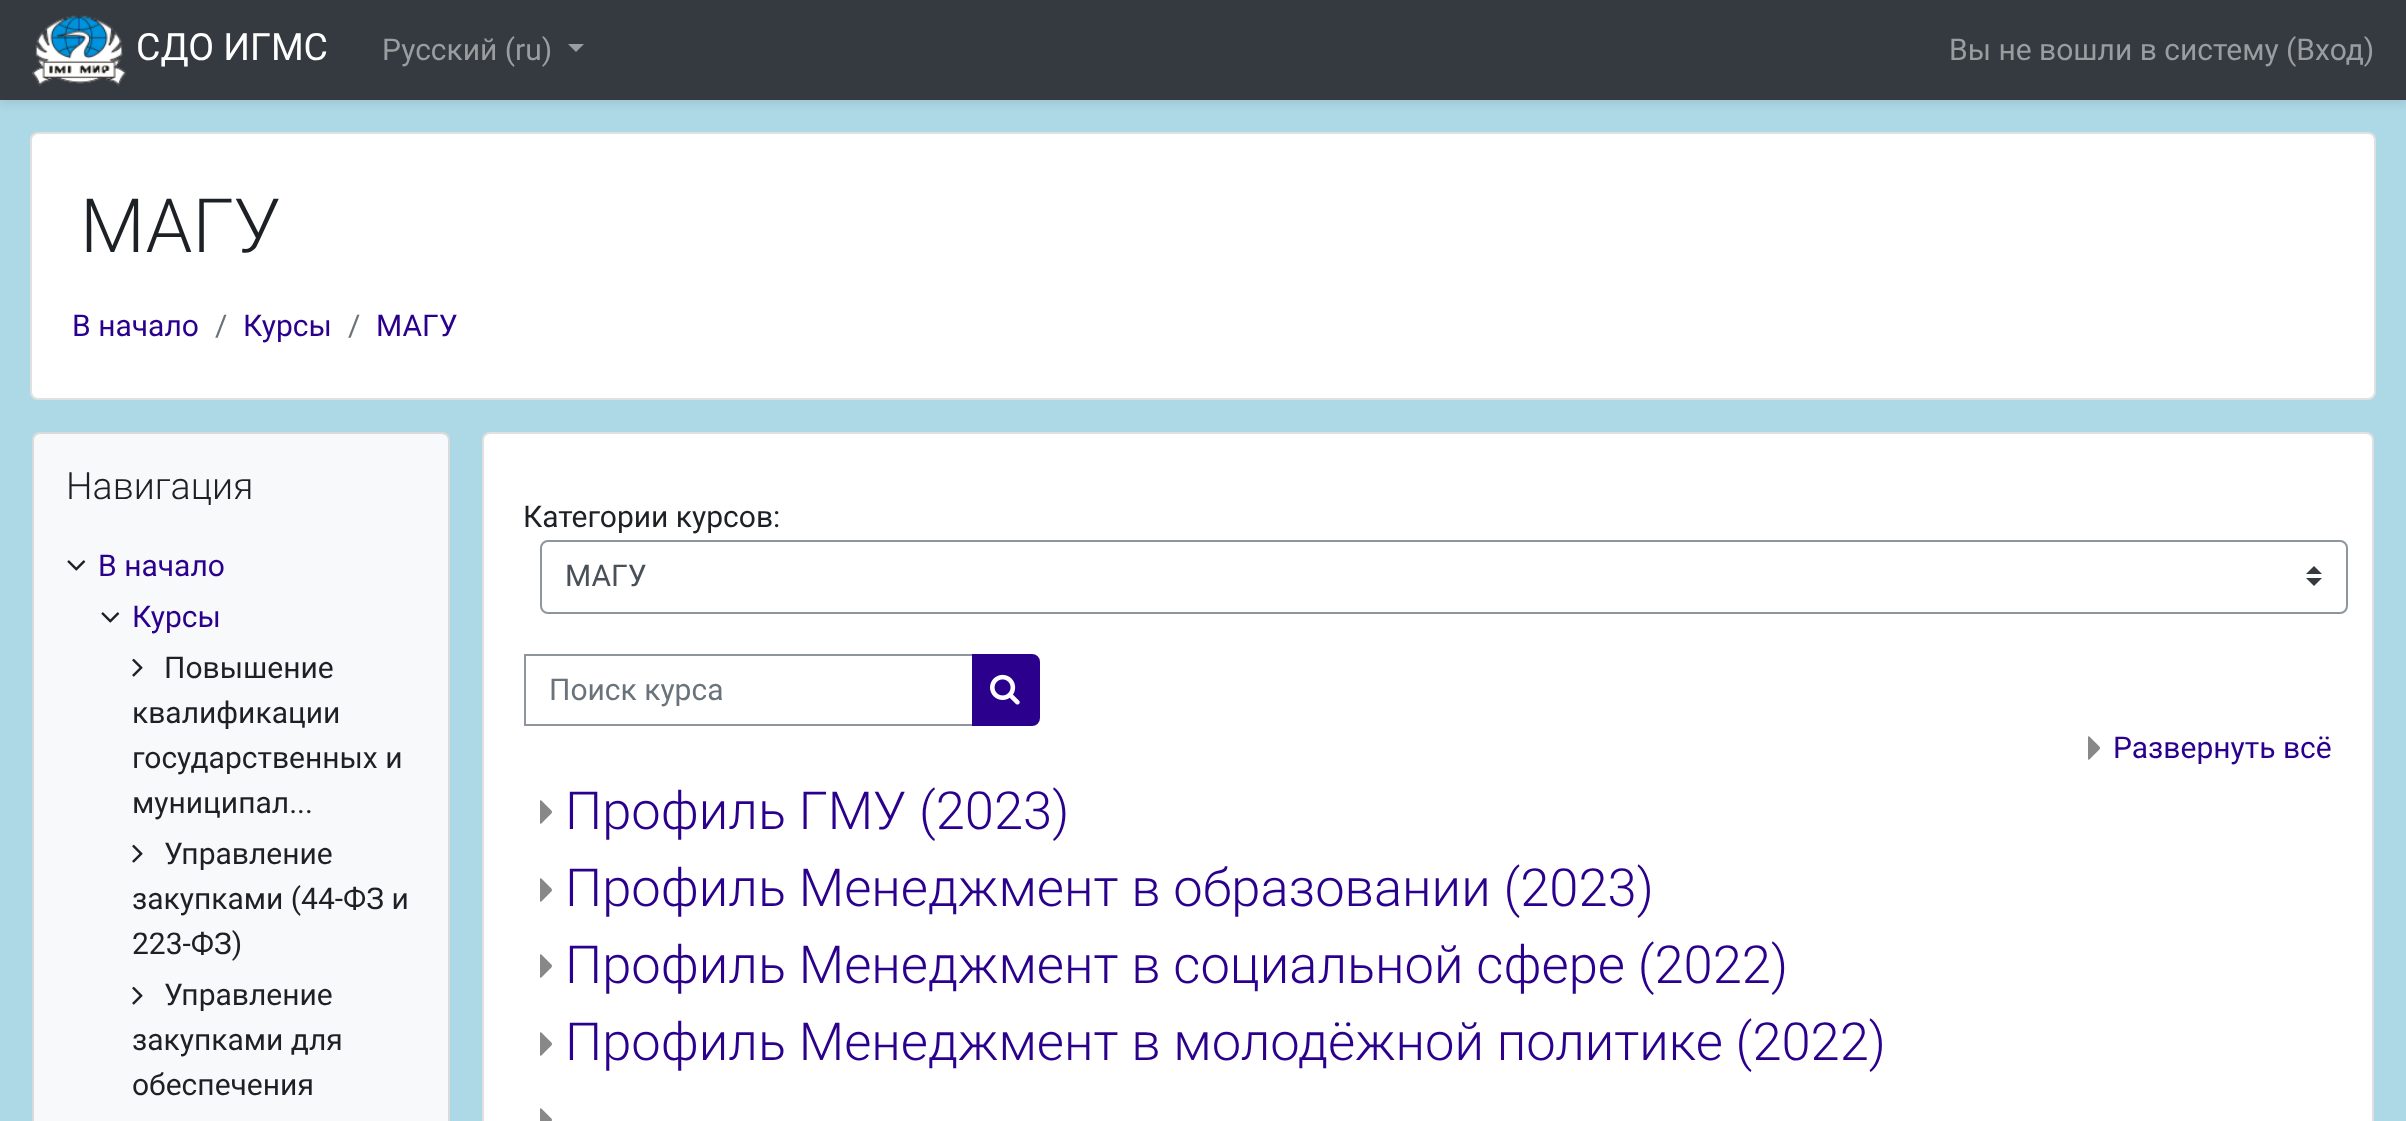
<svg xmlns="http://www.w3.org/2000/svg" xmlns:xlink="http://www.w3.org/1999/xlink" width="2406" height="1121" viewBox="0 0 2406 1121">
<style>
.cls-1{font:37.5px Roboto;fill:#ffffff}
.cls-2{font:30px Roboto;fill:#9a9da0}
.cls-3{font:300 75px Roboto;fill:#1d2125}
.cls-4{font:30px Roboto;fill:#2a008c}
.cls-5{font:30px Roboto;fill:#6a737b}
.cls-6{font:300 37.5px Roboto;fill:#1d2125}
.cls-7{font:30px Roboto;fill:#1d2125}
.cls-8{font:30px Roboto;fill:#495057}
.cls-9{font:300 52.5px Roboto;fill:#2a008c}
</style>
<rect width="100%" height="100%" fill="#add8e6"/>
<rect fill="#000000" fill-opacity="0.08" filter="blur(4px)" x="0" y="4" width="2406" height="100"/>
<rect fill="#343a40" x="0" y="0" width="2406" height="100"/>
<image xlink:href="image0.png" x="32" y="15" width="95" height="71"/>
<path fill="#9a9da0" d="M568 44H584L576 52Z"/>
<rect fill="#ffffff" x="30" y="132" width="2346" height="268" rx="8"/>
<rect fill="none" stroke="#000000" stroke-opacity="0.12" stroke-width="2" x="31" y="133" width="2344" height="266" rx="7"/>
<rect fill="#f8f9fa" x="32" y="432" width="418" height="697" rx="8"/>
<rect fill="none" stroke="#000000" stroke-opacity="0.12" stroke-width="2" x="33" y="433" width="416" height="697" rx="7"/>
<image xlink:href="image1.png" x="67" y="560" width="19" height="11"/>
<image xlink:href="image1.png" x="101" y="612" width="19" height="11"/>
<image xlink:href="image2.png" x="132" y="658" width="11" height="19"/>
<image xlink:href="image2.png" x="132" y="844" width="11" height="19"/>
<image xlink:href="image2.png" x="132" y="986" width="11" height="19"/>
<rect fill="#ffffff" x="482" y="432" width="1892" height="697" rx="8"/>
<rect fill="none" stroke="#000000" stroke-opacity="0.12" stroke-width="2" x="483" y="433" width="1890" height="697" rx="7"/>
<path fill="#343a40" d="M2314 566L2306 574H2322ZM2314 586L2306 578H2322Z"/>
<rect fill="none" stroke="#8f959e" stroke-width="2" x="541" y="541" width="1806" height="72" rx="7"/>
<rect fill="none" stroke="#8f959e" stroke-width="2" x="525" y="655" width="448" height="70"/>
<path fill="#2a008c" stroke="#2a008c" stroke-width="2" d="M973 655H1032C1036 655 1039 658 1039 662V718C1039 722 1036 725 1032 725H973Z"/>
<image xlink:href="image3.png" x="990" y="674" width="30" height="31"/>
<image xlink:href="image4.png" x="2088" y="736" width="12" height="24"/>
<image xlink:href="image4.png" x="540" y="800" width="12" height="24"/>
<image xlink:href="image4.png" x="540" y="878" width="12" height="24"/>
<image xlink:href="image4.png" x="540" y="954" width="12" height="24"/>
<image xlink:href="image4.png" x="540" y="1032" width="12" height="24"/>
<image xlink:href="image5.png" x="540" y="1108" width="12" height="13"/>
<text class="cls-1" x="136" y="60">СДО ИГМС</text>
<text class="cls-2" x="382" y="60">Русский (ru)</text>
<text class="cls-2" x="1949" y="60">Вы не вошли в систему (Вход)</text>
<text class="cls-3" x="80" y="252">МАГУ</text>
<text class="cls-4" x="72" y="336">В начало</text>
<text class="cls-5" x="215" y="336">/</text>
<text class="cls-4" x="243" y="336">Курсы</text>
<text class="cls-5" x="348" y="336">/</text>
<text class="cls-4" x="376" y="336">МАГУ</text>
<text class="cls-6" x="66" y="499">Навигация</text>
<text class="cls-4" x="98" y="576">В начало</text>
<text class="cls-4" x="132" y="627">Курсы</text>
<text class="cls-7" x="164" y="678">Повышение</text>
<text class="cls-7"><tspan x="132" y="723">квалификации</tspan><tspan x="132" y="768">государственных и</tspan><tspan x="132" y="813">муниципал...</tspan></text>
<text class="cls-7" x="164" y="864">Управление</text>
<text class="cls-7"><tspan x="132" y="909">закупками (44-ФЗ и</tspan><tspan x="132" y="954">223-ФЗ)</tspan></text>
<text class="cls-7" x="164" y="1005">Управление</text>
<text class="cls-7"><tspan x="132" y="1050">закупками для</tspan><tspan x="132" y="1095">обеспечения</tspan></text>
<text class="cls-7" x="523" y="527">Категории курсов:</text>
<text class="cls-8" x="565" y="586">МАГУ</text>
<text class="cls-5" x="549" y="700">Поиск курса</text>
<text class="cls-4" x="2113" y="758">Развернуть всё</text>
<text class="cls-9"><tspan x="565" y="829">Профиль ГМУ (2023)</tspan><tspan x="565" y="906">Профиль Менеджмент в образовании (2023)</tspan><tspan x="565" y="983">Профиль Менеджмент в социальной сфере (2022)</tspan><tspan x="565" y="1060">Профиль Менеджмент в молодёжной политике (2022)</tspan></text>
</svg>
